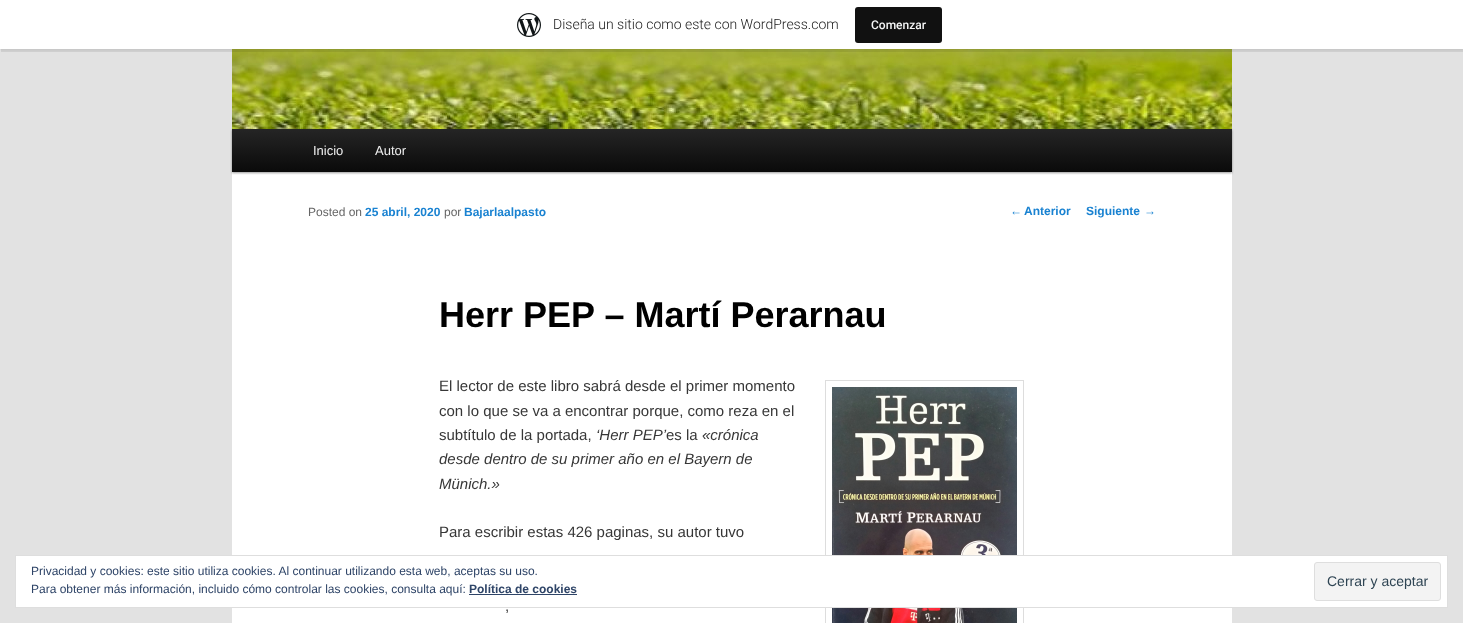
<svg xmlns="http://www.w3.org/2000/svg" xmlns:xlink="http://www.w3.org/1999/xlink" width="1463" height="623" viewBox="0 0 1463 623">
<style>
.cls-1{font:300 14px Roboto;fill:#171717}
.cls-2{font:500 12px Roboto;fill:#f6f7f7}
.cls-3{font:13px Liberation Sans;fill:#eeeeee}
.cls-4{font:12px Liberation Sans;fill:#666666}
.cls-5{font:bold 12px Liberation Sans;fill:#1982d1}
.cls-6{font:bold 36px Liberation Sans;fill:#000000}
.cls-7{font:15px Liberation Sans;fill:#373737}
.cls-8{font:italic 15px Liberation Sans;fill:#373737}
.cls-9{font:12px Liberation Sans;fill:#1982d1}
.cls-10{font:12px Liberation Sans;fill:#2e4467}
.cls-11{font:bold 12px Liberation Sans;fill:#2e4467}
.cls-12{font:14px Liberation Sans;fill:#2e4453}
</style>
<defs>
<linearGradient id="g1" gradientUnits="userSpaceOnUse" x1="732" y1="129" x2="732" y2="172"><stop offset="0" stop-color="#252525"/><stop offset="1" stop-color="#0a0a0a"/></linearGradient>
</defs>
<rect width="100%" height="100%" fill="#e2e2e2"/>
<rect fill="#ffffff" x="232" y="172" width="1000" height="451"/>
<rect fill="#000000" fill-opacity="0.4" filter="blur(1px)" x="232" y="130" width="1000" height="43"/>
<image xlink:href="image1.png" x="232" y="49" width="1000" height="80"/>
<rect fill="#000000" fill-opacity="0.05" filter="blur(1px)" x="0" y="1" width="1463" height="49"/>
<path fill="#000000" fill-opacity="0.08" d="M1 49V52H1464V3H1463V49Z"/>
<rect fill="#ffffff" x="0" y="0" width="1463" height="49"/>
<image xlink:href="image0.png" x="517" y="13" width="24" height="24"/>
<rect fill="#111111" x="855" y="7" width="87" height="36" rx="3"/>
<rect fill="url(#g1)" x="232" y="129" width="1000" height="43"/>
<rect fill="none" stroke="#dddddd" x="825.5" y="380.5" width="198" height="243"/>
<image xlink:href="image2.png" x="832" y="387" width="185" height="236"/>
<rect fill="#ffffff" stroke="#dedede" x="15.5" y="555.5" width="1432" height="52"/>
<rect fill="#2e4467" x="469" y="594" width="108" height="1"/>
<rect fill="#f3f3f3" stroke="#dedede" x="1314.5" y="562.5" width="126" height="38" rx="2.5"/>
<text class="cls-1" x="553" y="29">Diseña un sitio como este con WordPress.com</text>
<text class="cls-2" x="871" y="29">Comenzar</text>
<text class="cls-3" x="313" y="155">Inicio</text>
<text class="cls-3" x="375" y="155">Autor</text>
<text class="cls-4" x="308" y="216">Posted on</text>
<text class="cls-5" x="365" y="216">25 abril, 2020</text>
<text class="cls-4" x="444" y="216">por</text>
<text class="cls-5" x="464" y="216">Bajarlaalpasto</text>
<text class="cls-6" x="439" y="327">Herr PEP – Martí Perarnau</text>
<text class="cls-7"><tspan x="439" y="391">El lector de este libro sabrá desde el primer momento</tspan><tspan x="439" y="416">con lo que se va a encontrar porque, como reza en el</tspan><tspan x="439" y="440">subtítulo de la portada,</tspan></text>
<text class="cls-8" x="596" y="440">‘Herr PEP’</text>
<text class="cls-7" x="666" y="440">es la</text>
<text class="cls-8" x="702" y="440">«crónica</text>
<text class="cls-8"><tspan x="439" y="464">desde dentro de su primer año en el Bayern de</tspan><tspan x="439" y="489">Münich.»</tspan></text>
<text class="cls-7" x="439" y="537">Para escribir estas 426 paginas, su autor tuvo</text>
<text class="cls-7" x="505" y="611">,</text>
<text class="cls-9" x="1010" y="215">←</text>
<text class="cls-5" x="1024" y="215">Anterior</text>
<text class="cls-5" x="1086" y="215">Siguiente</text>
<text class="cls-9" x="1144" y="215">→</text>
<text class="cls-10"><tspan x="31" y="575">Privacidad y cookies: este sitio utiliza cookies. Al continuar utilizando esta web, aceptas su uso.</tspan><tspan x="31" y="593">Para obtener más información, incluido cómo controlar las cookies, consulta aquí:</tspan></text>
<text class="cls-11" x="469" y="593">Política de cookies</text>
<text class="cls-12" x="1327" y="586">Cerrar y aceptar</text>
</svg>
